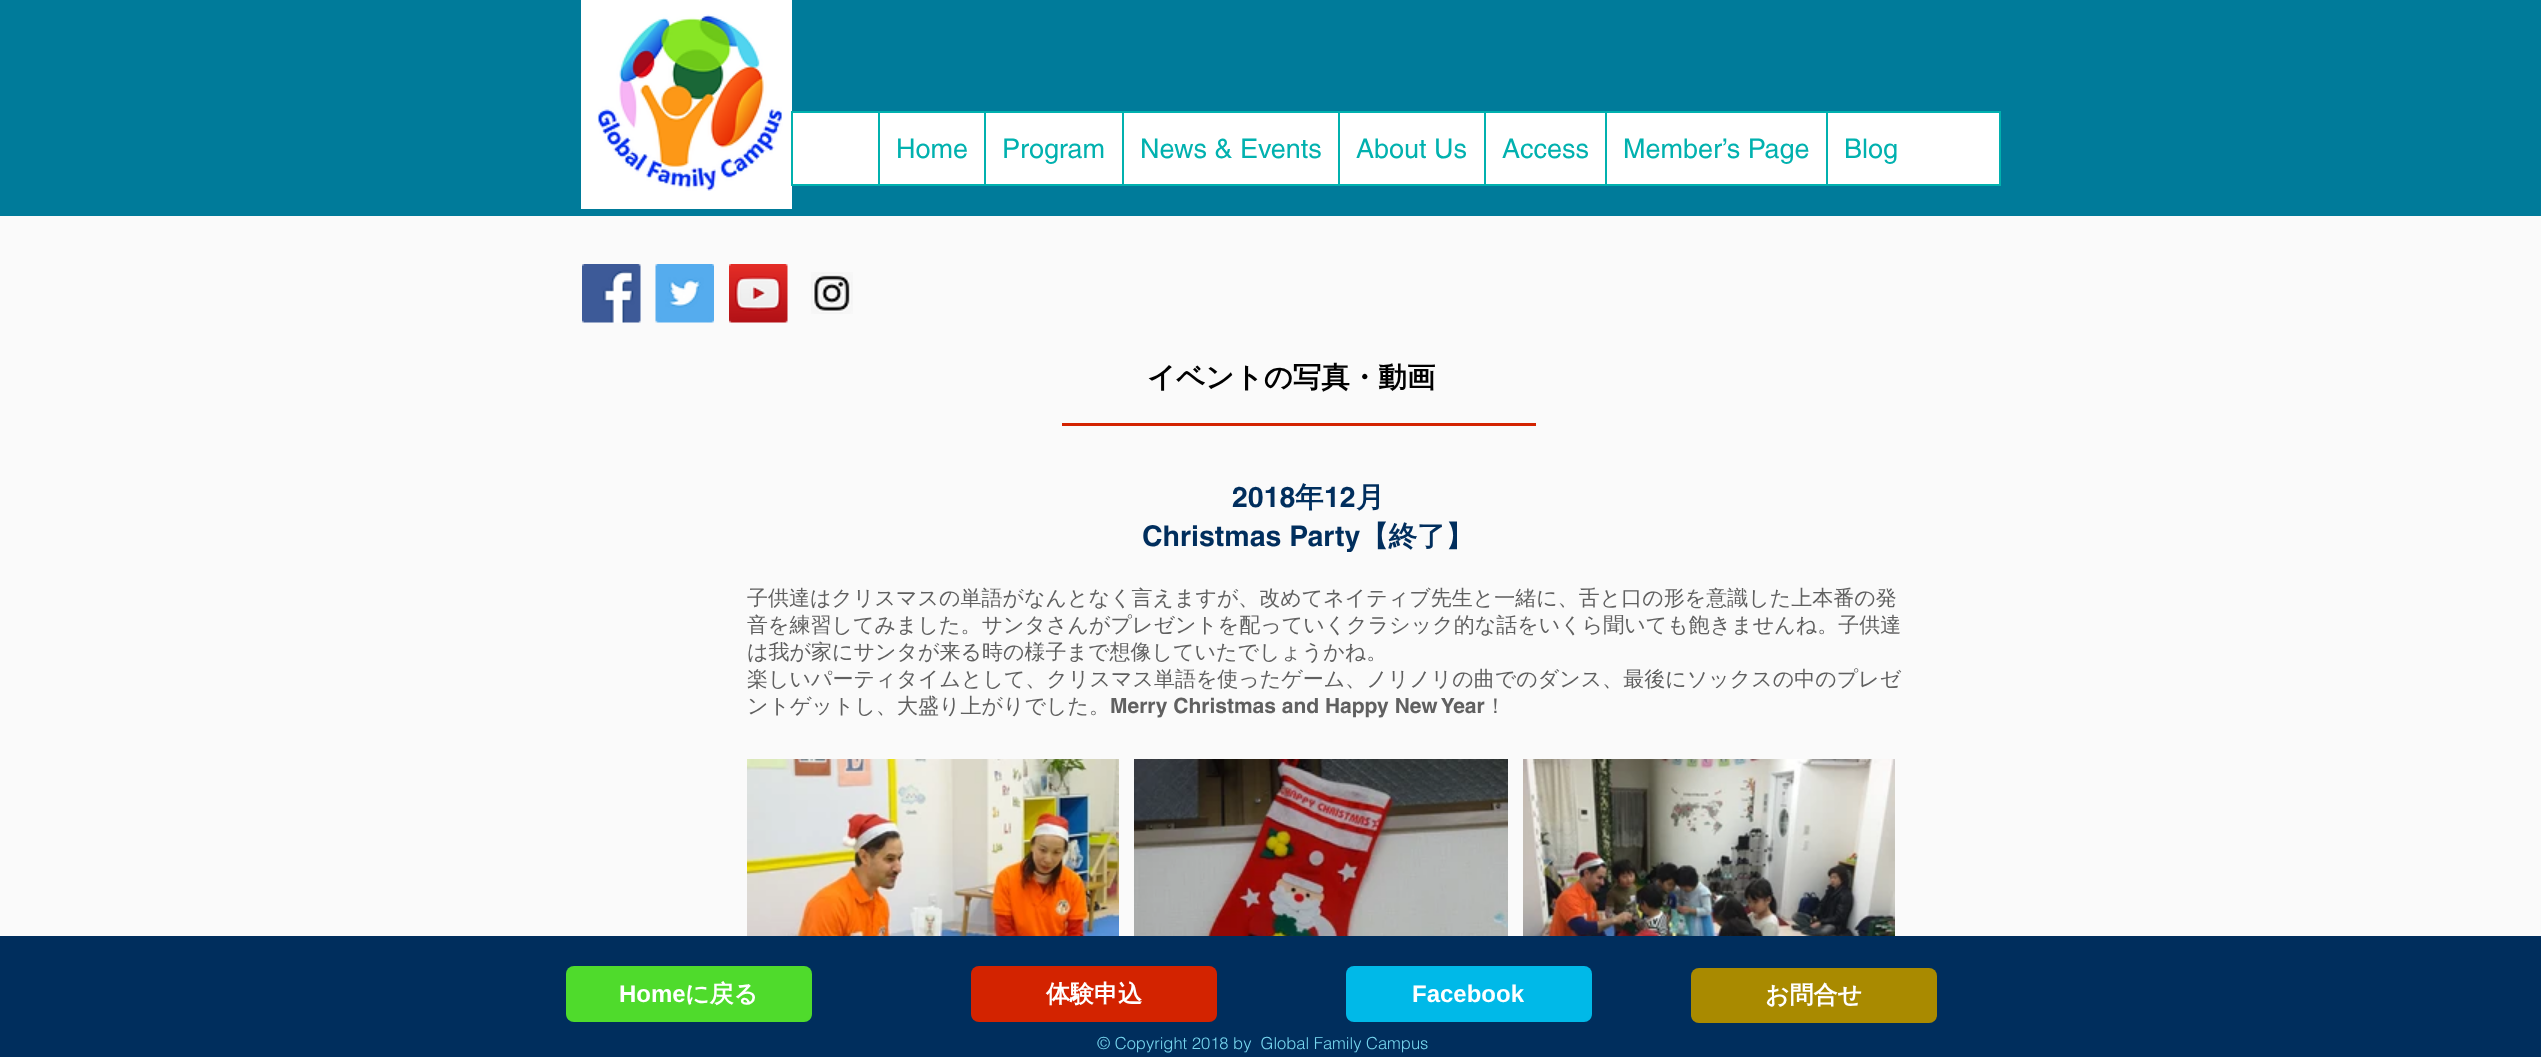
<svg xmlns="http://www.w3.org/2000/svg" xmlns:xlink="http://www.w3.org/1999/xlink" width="2541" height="1057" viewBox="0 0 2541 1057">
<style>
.cls-1{font:27px helvetica;fill:#01b1af}
.cls-2{font:bold 28.5px WenQuanYi Zen Hei;fill:#000000}
.cls-3{font:bold 28.5px helvetica;fill:#002e5d}
.cls-4{font:bold 28.5px WenQuanYi Zen Hei;fill:#002e5d}
.cls-5{font:500 21px WenQuanYi Zen Hei;fill:#606060}
.cls-6{font:bold 21px helvetica;fill:#606060}
.cls-7{font:bold 24px Liberation Sans;fill:#ffffff}
.cls-8{font:bold 24px WenQuanYi Zen Hei;fill:#ffffff}
.cls-9{font:300 16.5px helvetica;fill:#77d7ef}
</style>
<rect width="100%" height="100%" fill="#fafafa"/>
<rect fill="#007b9a" x="0" y="0" width="2541" height="216"/>
<rect fill="#ffffff" x="581" y="0" width="211" height="209"/>
<image xlink:href="image0.png" x="597" y="14" width="186" height="177"/>
<rect fill="#ffffff" stroke="#01b1af" stroke-width="2" x="792" y="112" width="1208" height="73"/>
<rect fill="#01b1af" x="878" y="113" width="2" height="72"/>
<rect fill="#01b1af" x="984" y="113" width="2" height="72"/>
<rect fill="#01b1af" x="1122" y="113" width="2" height="72"/>
<rect fill="#01b1af" x="1338" y="113" width="2" height="72"/>
<rect fill="#01b1af" x="1484" y="113" width="2" height="72"/>
<rect fill="#01b1af" x="1605" y="113" width="2" height="72"/>
<rect fill="#01b1af" x="1826" y="113" width="2" height="72"/>
<image xlink:href="image1.png" x="582" y="264" width="59" height="59"/>
<image xlink:href="image2.png" x="655" y="264" width="59" height="59"/>
<image xlink:href="image3.png" x="729" y="264" width="59" height="59"/>
<image xlink:href="image4.png" x="811" y="272" width="42" height="42"/>
<rect fill="#d32300" x="1062" y="423" width="474" height="3"/>
<image xlink:href="image5.png" x="747" y="759" width="372" height="177"/>
<image xlink:href="image6.png" x="1134" y="759" width="374" height="177"/>
<image xlink:href="image7.png" x="1523" y="759" width="372" height="177"/>
<rect fill="#002e5d" x="0" y="936" width="2541" height="121"/>
<rect fill="#4fdb2c" x="566" y="966" width="246" height="56" rx="8"/>
<rect fill="#d32300" x="971" y="966" width="246" height="56" rx="8"/>
<rect fill="#00b9e8" x="1346" y="966" width="246" height="56" rx="8"/>
<rect fill="#a98a00" x="1691" y="968" width="246" height="55" rx="8"/>
<text class="cls-1" x="896" y="158">Home</text>
<text class="cls-1" x="1002" y="158">Program</text>
<text class="cls-1" x="1140" y="158">News &amp; Events</text>
<text class="cls-1" x="1356" y="158">About Us</text>
<text class="cls-1" x="1502" y="158">Access</text>
<text class="cls-1" x="1623" y="158">Member’s Page</text>
<text class="cls-1" x="1844" y="158">Blog</text>
<text class="cls-2" x="1147" y="387">イベントの写真・動画</text>
<text class="cls-3" x="1232" y="507">2018</text>
<text class="cls-4" x="1295" y="507">年</text>
<text class="cls-3" x="1324" y="507">12</text>
<text class="cls-4" x="1356" y="507">月</text>
<text class="cls-3" x="1142" y="546">Christmas Party</text>
<text class="cls-4" x="1360" y="546">【終了】</text>
<text class="cls-5"><tspan x="747" y="605">子供達はクリスマスの単語がなんとなく言えますが、改めてネイティブ先生と一緒に、舌と口の形を意識した上本番の発</tspan><tspan x="747" y="632">音を練習してみました。サンタさんがプレゼントを配っていくクラシック的な話をいくら聞いても飽きませんね。子供達</tspan><tspan x="747" y="659">は我が家にサンタが来る時の様子まで想像していたでしょうかね。</tspan><tspan x="747" y="686">楽しいパーティタイムとして、クリスマス単語を使ったゲーム、ノリノリの曲でのダンス、最後にソックスの中のプレゼ</tspan><tspan x="747" y="713">ントゲットし、大盛り上がりでした。</tspan></text>
<text class="cls-6" x="1110" y="713">Merry Christmas and Happy New Year</text>
<text class="cls-5" x="1485" y="713">！</text>
<text class="cls-7" x="619" y="1002">Home</text>
<text class="cls-8" x="685" y="1002">に戻る</text>
<text class="cls-8" x="1046" y="1002">体験申込</text>
<text class="cls-7" x="1412" y="1002">Facebook</text>
<text class="cls-8" x="1765" y="1003">お問合せ</text>
<text class="cls-9" xml:space="preserve" x="1097" y="1049">© Copyright 2018 by  Global Family Campus</text>
</svg>
